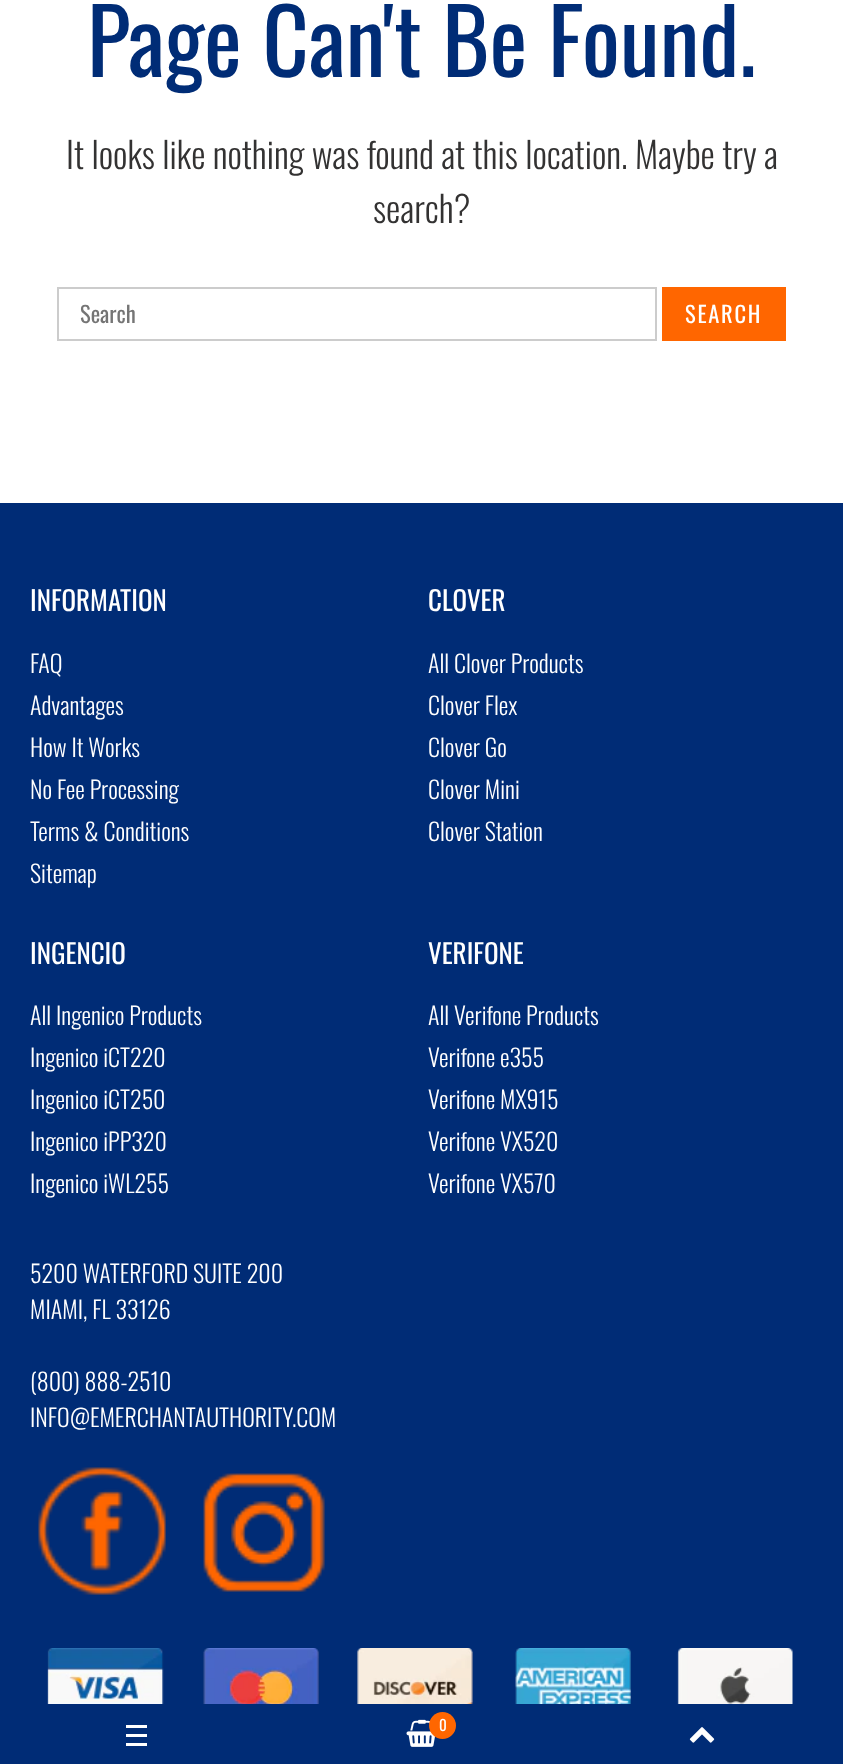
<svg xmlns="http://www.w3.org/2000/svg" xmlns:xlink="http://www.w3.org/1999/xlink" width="843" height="1764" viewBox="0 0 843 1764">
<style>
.cls-1{font:90px Oswald;fill:#002c76}
.cls-2{font:300 36px Oswald;fill:#333232}
.cls-3{font:22.5px Oswald;fill:#757575}
.cls-4{font:22.5px Oswald;letter-spacing:1.75px;fill:#ffffff}
.cls-5{font:27px Oswald;fill:#ffffff}
.cls-6{font:300 24px Oswald;fill:#ffffff}
.cls-7{font:15px Oswald;fill:#ffffff}
</style>
<rect width="100%" height="100%" fill="#ffffff"/>
<rect fill="none" stroke="#cccccc" stroke-width="2" x="58" y="288" width="598" height="52"/>
<rect fill="#ff6600" x="662" y="287" width="124" height="54"/>
<rect fill="#002c76" x="0" y="503" width="843" height="1201"/>
<image xlink:href="image0.png" x="38" y="1467" width="128" height="128"/>
<image xlink:href="image1.png" x="203" y="1473" width="122" height="119"/>
<image xlink:href="image2.png" x="47" y="1648" width="746" height="56"/>
<rect fill="#002c76" x="0" y="1704" width="563" height="60"/>
<rect fill="#ffffff" x="126" y="1734" width="21" height="3"/>
<rect fill="#ffffff" x="126" y="1725" width="21" height="3"/>
<rect fill="#ffffff" x="126" y="1743" width="21" height="3"/>
<rect fill="#002c76" x="563" y="1704" width="280" height="60"/>
<image xlink:href="image3.png" x="689" y="1727" width="26" height="16"/>
<image xlink:href="image4.png" x="406" y="1719" width="29" height="28"/>
<circle fill="#ff6600" cx="442.5" cy="1725.5" r="13.5"/>
<text class="cls-1" x="87" y="77">Page Can't Be Found.</text>
<text class="cls-2" x="66" y="169">It looks like nothing was found at this location. Maybe try a</text>
<text class="cls-2" x="373" y="223">search?</text>
<text class="cls-3" x="80" y="323">Search</text>
<text class="cls-4" x="685" y="323">SEARCH</text>
<text class="cls-5" x="30" y="611">INFORMATION</text>
<text class="cls-6"><tspan x="30" y="673">FAQ</tspan><tspan x="30" y="715">Advantages</tspan><tspan x="30" y="757">How It Works</tspan><tspan x="30" y="799">No Fee Processing</tspan><tspan x="30" y="841">Terms &amp; Conditions</tspan><tspan x="30" y="883">Sitemap</tspan></text>
<text class="cls-5" x="428" y="611">CLOVER</text>
<text class="cls-6"><tspan x="428" y="673">All Clover Products</tspan><tspan x="428" y="715">Clover Flex</tspan><tspan x="428" y="757">Clover Go</tspan><tspan x="428" y="799">Clover Mini</tspan><tspan x="428" y="841">Clover Station</tspan></text>
<text class="cls-5" x="30" y="964">INGENCIO</text>
<text class="cls-6"><tspan x="30" y="1025">All Ingenico Products</tspan><tspan x="30" y="1067">Ingenico iCT220</tspan><tspan x="30" y="1109">Ingenico iCT250</tspan><tspan x="30" y="1151">Ingenico iPP320</tspan><tspan x="30" y="1193">Ingenico iWL255</tspan></text>
<text class="cls-5" x="428" y="964">VERIFONE</text>
<text class="cls-6"><tspan x="428" y="1025">All Verifone Products</tspan><tspan x="428" y="1067">Verifone e355</tspan><tspan x="428" y="1109">Verifone MX915</tspan><tspan x="428" y="1151">Verifone VX520</tspan><tspan x="428" y="1193">Verifone VX570</tspan></text>
<text class="cls-6"><tspan x="30" y="1283">5200 WATERFORD SUITE 200</tspan><tspan x="30" y="1319">MIAMI, FL 33126</tspan></text>
<text class="cls-6"><tspan x="30" y="1391">(800) 888-2510</tspan><tspan x="30" y="1427">INFO@EMERCHANTAUTHORITY.COM</tspan></text>
<text class="cls-7" x="439" y="1731">0</text>
</svg>
